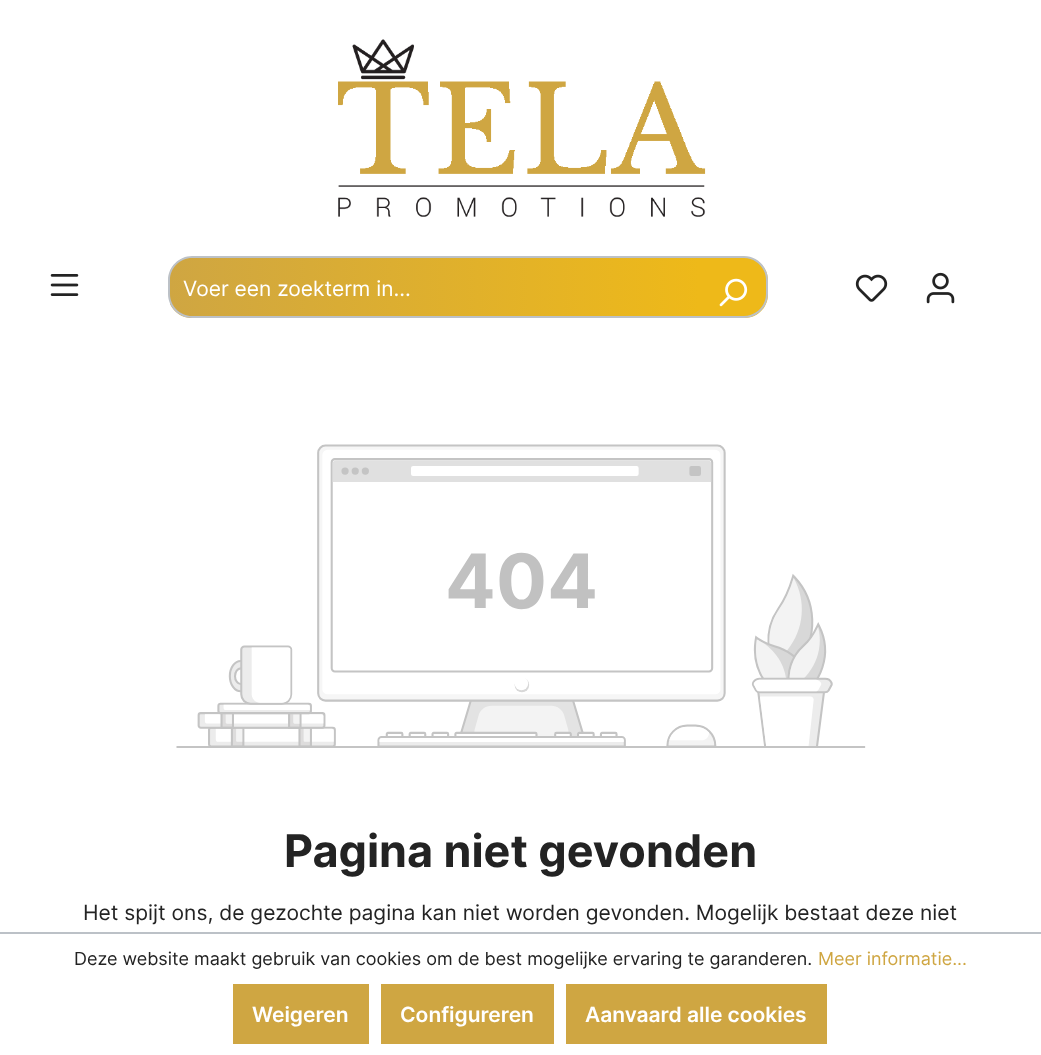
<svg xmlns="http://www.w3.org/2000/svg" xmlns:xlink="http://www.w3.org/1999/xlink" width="1041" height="1055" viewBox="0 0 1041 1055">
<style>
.cls-1{font:21px Inter;fill:#ffffff}
.cls-2{font:bold 44.9px Inter;fill:#232323}
.cls-3{font:21px Inter;fill:#232323}
.cls-4{font:18px Inter;fill:#232323}
.cls-5{font:18px Inter;fill:#cfa642}
.cls-6{font:600 21px Inter;fill:#ffffff}
</style>
<defs>
<clipPath id="clip1"><path d="M192 257H699V318H192C178.5 318 168 307.5 168 294V281C168 267.5 178.5 257 192 257Z"/></clipPath>
<linearGradient id="g1" gradientUnits="userSpaceOnUse" x1="170" y1="287" x2="699" y2="287"><stop offset="0" stop-color="#cfa642"/><stop offset="1" stop-color="#eeb919"/></linearGradient>
</defs>
<rect width="100%" height="100%" fill="#ffffff"/>
<image xlink:href="image0.png" x="338" y="39" width="368" height="178"/>
<image xlink:href="image1.png" x="50" y="274" width="29" height="22"/>
<g clip-path="url(#clip1)">
<rect fill="url(#g1)" x="170" y="257" width="528" height="61"/>
</g>
<path fill="#bcc1c7" fill-rule="evenodd" d="M192 256H699V318H192C179 318 168 307 168 294V280C168 267 179 256 192 256ZM192 258H699V316H192C180 316 170 306 170 294V280C170 268 180 258 192 258Z"/>
<path fill="#eeb919" d="M698 257H744C757.5 257 768 267.5 768 281V294C768 307.5 757.5 318 744 318H698Z"/>
<path fill="#bcc1c7" fill-rule="evenodd" d="M698 256H744C757 256 768 267 768 280V294C768 307 757 318 744 318H698ZM698 258H744C756 258 766 268 766 280V294C766 306 756 316 744 316H698Z"/>
<image xlink:href="image2.png" x="719" y="278" width="29" height="29"/>
<image xlink:href="image3.png" x="855" y="274" width="33" height="28"/>
<image xlink:href="image4.png" x="926" y="272" width="29" height="32"/>
<image xlink:href="image5.png" x="176" y="444" width="690" height="304"/>
<rect fill="#bcc1c7" x="0" y="932" width="1041" height="2"/>
<rect fill="#cfa642" x="233" y="984" width="136" height="60"/>
<rect fill="#cfa642" x="381" y="984" width="173" height="60"/>
<rect fill="#cfa642" x="566" y="984" width="261" height="60"/>
<text class="cls-1" x="183" y="296">Voer een zoekterm in...</text>
<text class="cls-2" x="284" y="867">Pagina niet gevonden</text>
<text class="cls-3" x="83" y="920">Het spijt ons, de gezochte pagina kan niet worden gevonden. Mogelijk bestaat deze niet</text>
<text class="cls-4" x="74" y="965">Deze website maakt gebruik van cookies om de best mogelijke ervaring te garanderen.</text>
<text class="cls-5" x="818" y="965">Meer informatie...</text>
<text class="cls-6" x="252" y="1022">Weigeren</text>
<text class="cls-6" x="400" y="1022">Configureren</text>
<text class="cls-6" x="585" y="1022">Aanvaard alle cookies</text>
</svg>
